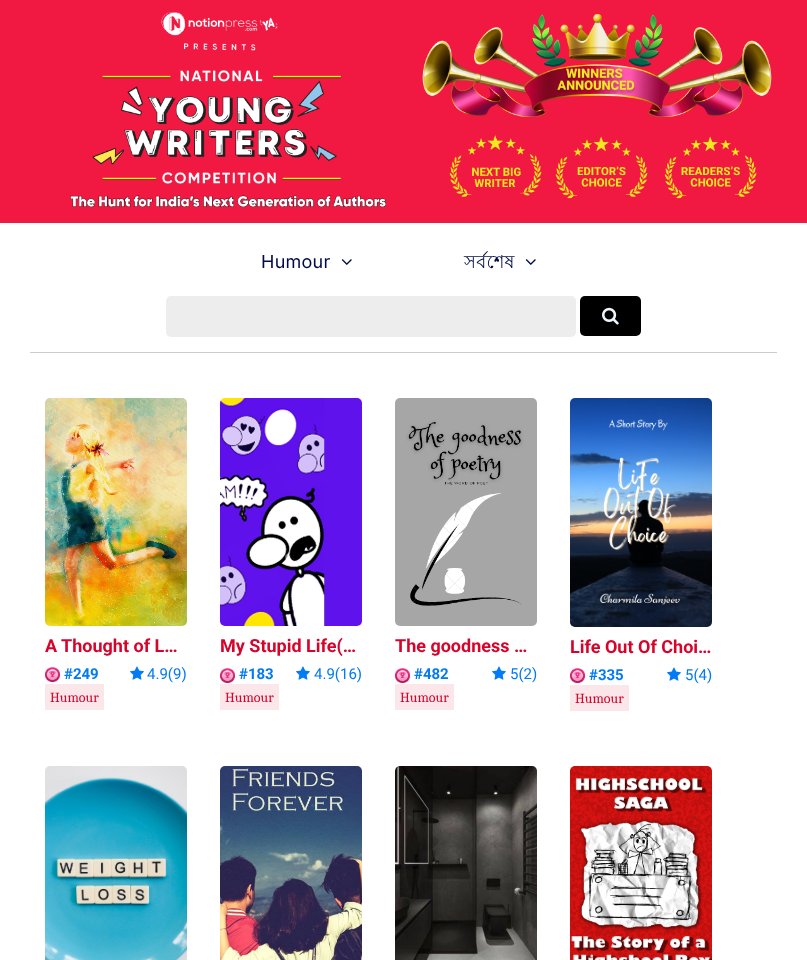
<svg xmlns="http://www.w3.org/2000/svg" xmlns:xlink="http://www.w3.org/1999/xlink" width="807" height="960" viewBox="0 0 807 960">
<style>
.cls-1{font:18px Inter;letter-spacing:0.25px;fill:#000b46}
.cls-2{font:18px Lohit Bengali;letter-spacing:0.25px;fill:#000b46}
.cls-3{font:bold 18px Roboto;fill:#d6042b}
.cls-4{font:bold 15px Roboto;fill:#037af6}
.cls-5{font:15px Roboto;fill:#037af6}
.cls-6{font:14px Caladea;fill:#d6042b}
</style>
<rect width="100%" height="100%" fill="#ffffff"/>
<image xlink:href="image0.png" x="0" y="0" width="807" height="223"/>
<rect fill="#cccccc" x="30" y="352" width="747" height="1"/>
<image xlink:href="image1.png" x="341" y="259" width="11" height="6"/>
<image xlink:href="image1.png" x="525" y="259" width="11" height="6"/>
<rect fill="#ededed" x="166" y="296" width="410" height="41" rx="5"/>
<rect fill="#000000" x="580" y="296" width="61" height="40" rx="5"/>
<image xlink:href="image2.png" x="602" y="307" width="17" height="18"/>
<image xlink:href="image3.png" x="45" y="398" width="142" height="228"/>
<image xlink:href="image4.png" x="45" y="667" width="15" height="15"/>
<image xlink:href="image5.png" x="130" y="666" width="14" height="14"/>
<rect fill="#fbe6ea" x="45" y="684" width="59" height="26"/>
<image xlink:href="image6.png" x="220" y="398" width="142" height="228"/>
<image xlink:href="image7.png" x="220" y="668" width="15" height="15"/>
<image xlink:href="image5.png" x="296" y="666" width="14" height="14"/>
<rect fill="#fbe6ea" x="220" y="684" width="59" height="26"/>
<image xlink:href="image8.png" x="395" y="398" width="142" height="228"/>
<image xlink:href="image7.png" x="395" y="668" width="15" height="15"/>
<image xlink:href="image5.png" x="492" y="666" width="14" height="14"/>
<rect fill="#fbe6ea" x="395" y="684" width="59" height="26"/>
<image xlink:href="image9.png" x="570" y="398" width="142" height="229"/>
<image xlink:href="image4.png" x="570" y="668" width="15" height="15"/>
<image xlink:href="image5.png" x="667" y="667" width="14" height="14"/>
<rect fill="#fbe6ea" x="570" y="685" width="59" height="26"/>
<image xlink:href="image10.png" x="45" y="766" width="142" height="194"/>
<image xlink:href="image11.png" x="220" y="766" width="142" height="194"/>
<image xlink:href="image12.png" x="395" y="766" width="142" height="194"/>
<image xlink:href="image13.png" x="570" y="766" width="142" height="194"/>
<text class="cls-1" x="261" y="268">Humour</text>
<text class="cls-2" x="464" y="268">সর্বশেষ</text>
<text class="cls-3" x="45" y="652">A Thought of L…</text>
<text class="cls-4" x="64" y="679">#249</text>
<text class="cls-5" x="147" y="679">4.9(9)</text>
<text class="cls-6" x="50" y="702">Humour</text>
<text class="cls-3" x="220" y="652">My Stupid Life(…</text>
<text class="cls-4" x="239" y="679">#183</text>
<text class="cls-5" x="314" y="679">4.9(16)</text>
<text class="cls-6" x="225" y="702">Humour</text>
<text class="cls-3" x="395" y="652">The goodness …</text>
<text class="cls-4" x="414" y="679">#482</text>
<text class="cls-5" x="510" y="679">5(2)</text>
<text class="cls-6" x="400" y="702">Humour</text>
<text class="cls-3" x="570" y="653">Life Out Of Choi…</text>
<text class="cls-4" x="589" y="680">#335</text>
<text class="cls-5" x="685" y="680">5(4)</text>
<text class="cls-6" x="575" y="703">Humour</text>
</svg>
